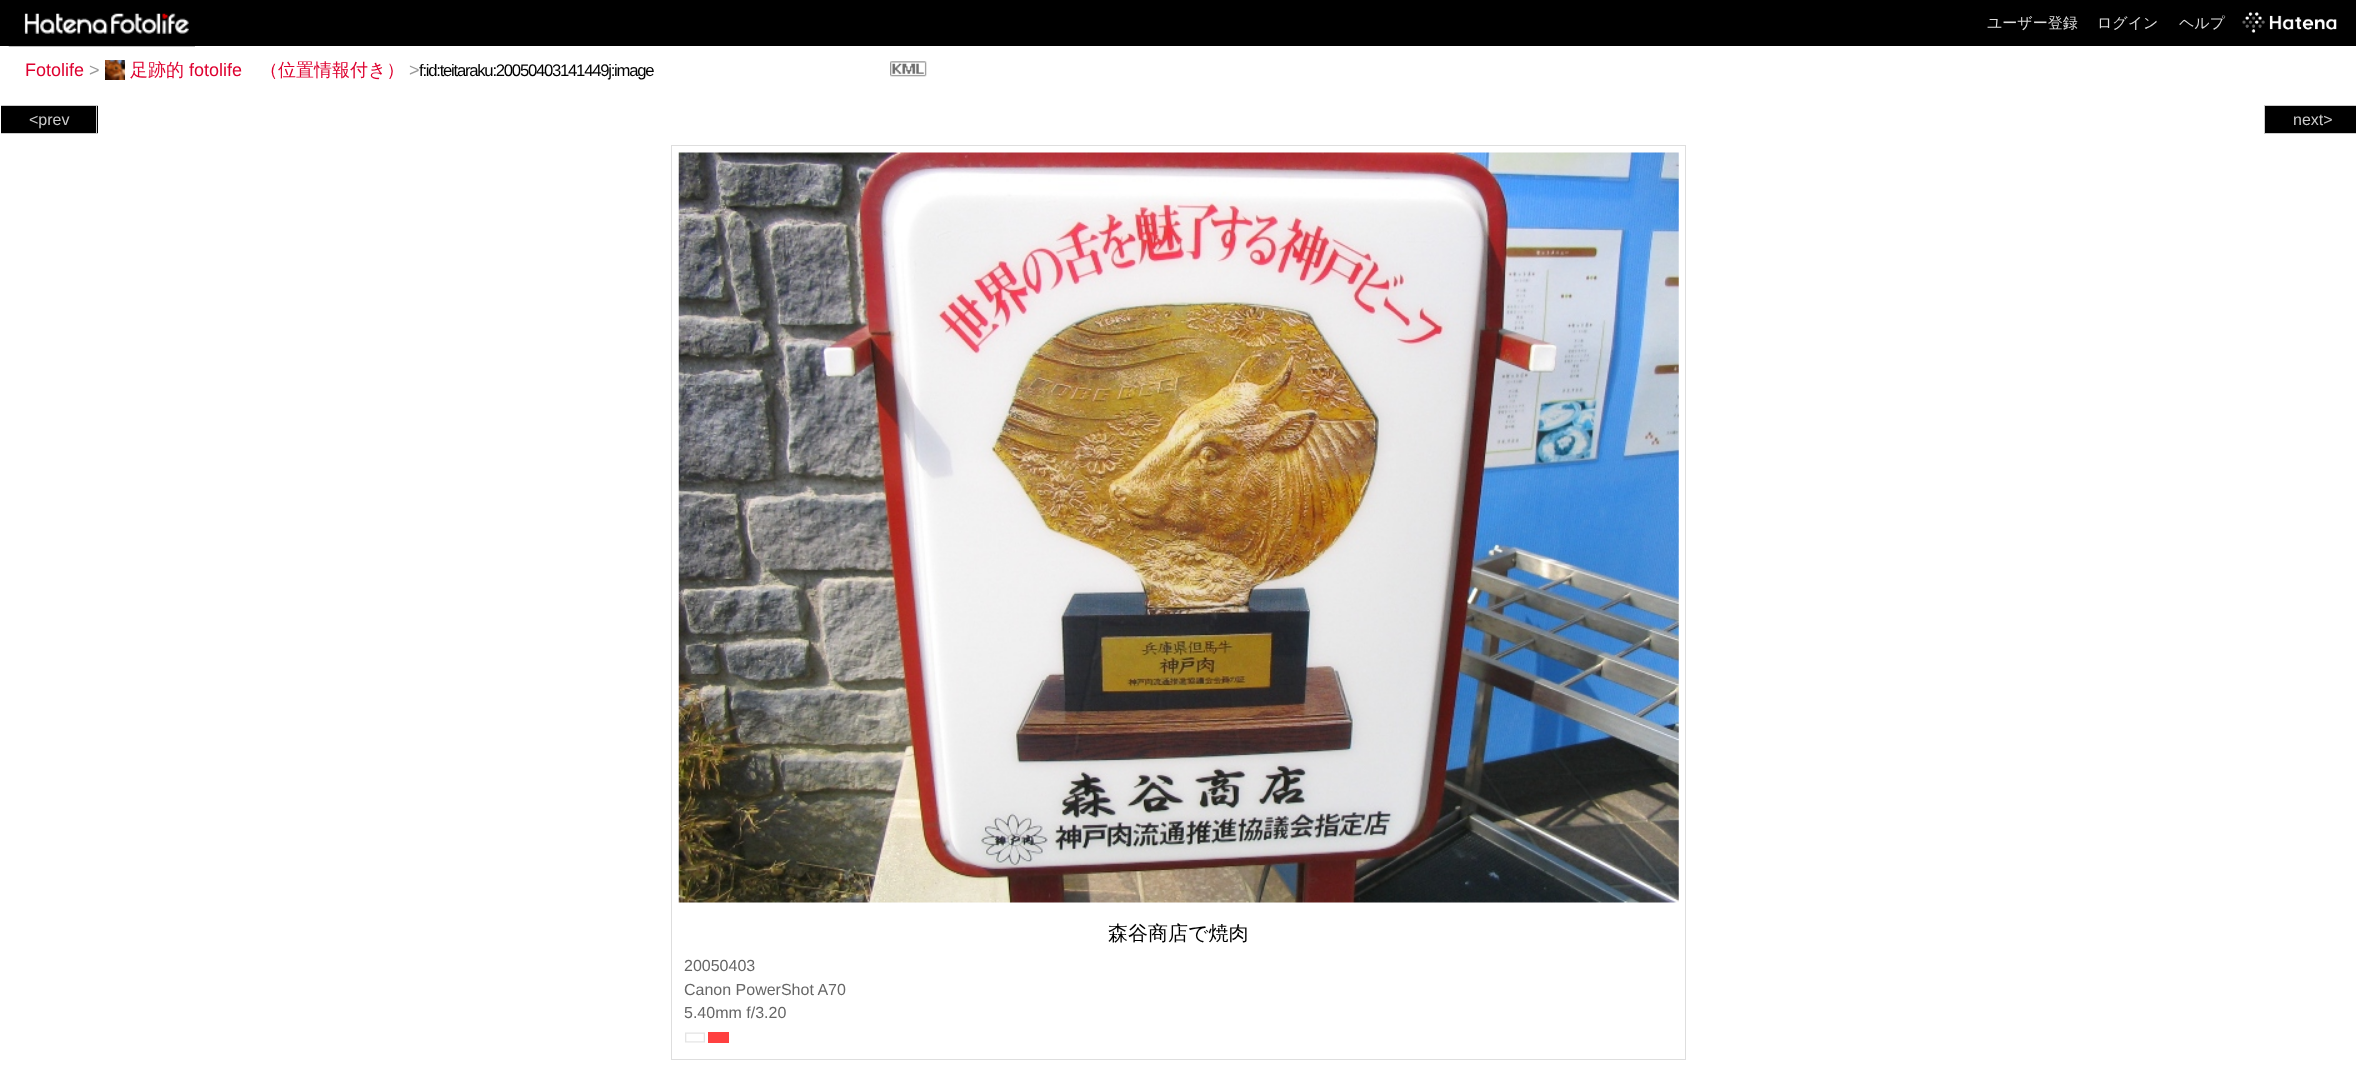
<svg xmlns="http://www.w3.org/2000/svg" xmlns:xlink="http://www.w3.org/1999/xlink" width="2356" height="1086" viewBox="0 0 2356 1086">
<style>
.cls-1{font:500 15px WenQuanYi Zen Hei;fill:#dddddd}
.cls-2{font:18px Liberation Sans;fill:#de002f}
.cls-3{font:18px Liberation Sans;fill:#999999}
.cls-4{font:500 18px WenQuanYi Zen Hei;fill:#de002f}
.cls-5{font:16.7px Liberation Sans;letter-spacing:-1.25px;fill:#000000}
.cls-6{font:16px Liberation Sans;fill:#cccccc}
.cls-7{font:500 20px WenQuanYi Zen Hei;fill:#000000}
.cls-8{font:16px Liberation Sans;fill:#666666}
</style>
<rect width="100%" height="100%" fill="#ffffff"/>
<rect fill="#000000" x="0" y="0" width="2356" height="46"/>
<image xlink:href="image0.png" x="8" y="13" width="104" height="34"/>
<image xlink:href="image1.png" x="111" y="13" width="84" height="34"/>
<image xlink:href="image2.png" x="2242" y="12" width="95" height="21"/>
<image xlink:href="image3.png" x="105" y="60" width="20" height="20"/>
<image xlink:href="image4.png" x="890" y="61" width="37" height="16"/>
<rect fill="#000000" x="1" y="106" width="97" height="27"/>
<rect fill="#cccccc" x="1" y="105" width="97" height="1"/>
<rect fill="#cccccc" x="96" y="105" width="1" height="29"/>
<rect fill="#cccccc" x="1" y="133" width="97" height="1"/>
<rect fill="#000000" x="2265" y="106" width="91" height="27"/>
<rect fill="#cccccc" x="2264" y="105" width="92" height="1"/>
<rect fill="#cccccc" x="2264" y="133" width="92" height="1"/>
<rect fill="#cccccc" x="2264" y="105" width="1" height="29"/>
<rect fill="none" stroke="#dedede" x="671.5" y="145.5" width="1014" height="914"/>
<image xlink:href="image5.png" x="678" y="152" width="1001" height="751"/>
<image xlink:href="image6.png" x="685" y="1032" width="20" height="11"/>
<rect fill="#ff4040" x="708" y="1032" width="21" height="11"/>
<text class="cls-1" x="1987" y="28">ユーザー登録</text>
<text class="cls-1" x="2097" y="28">ログイン</text>
<text class="cls-1" x="2179" y="28">ヘルプ</text>
<text class="cls-2" x="25" y="76">Fotolife</text>
<text class="cls-3" x="89" y="76">&gt;</text>
<text class="cls-4" x="130" y="76">足跡的</text>
<text class="cls-2" x="189" y="76">fotolife</text>
<text class="cls-4" x="260" y="76">（位置情報付き）</text>
<text class="cls-3" x="409" y="76">&gt;</text>
<text class="cls-5" x="419" y="76">f:id:teitaraku:20050403141449j:image</text>
<text class="cls-6" x="29" y="125">&lt;prev</text>
<text class="cls-6" x="2293" y="125">next&gt;</text>
<text class="cls-7" x="1108" y="940">森谷商店で焼肉</text>
<text class="cls-8"><tspan x="684" y="971">20050403</tspan><tspan x="684" y="995">Canon PowerShot A70</tspan><tspan x="684" y="1018">5.40mm f/3.20</tspan></text>
</svg>
